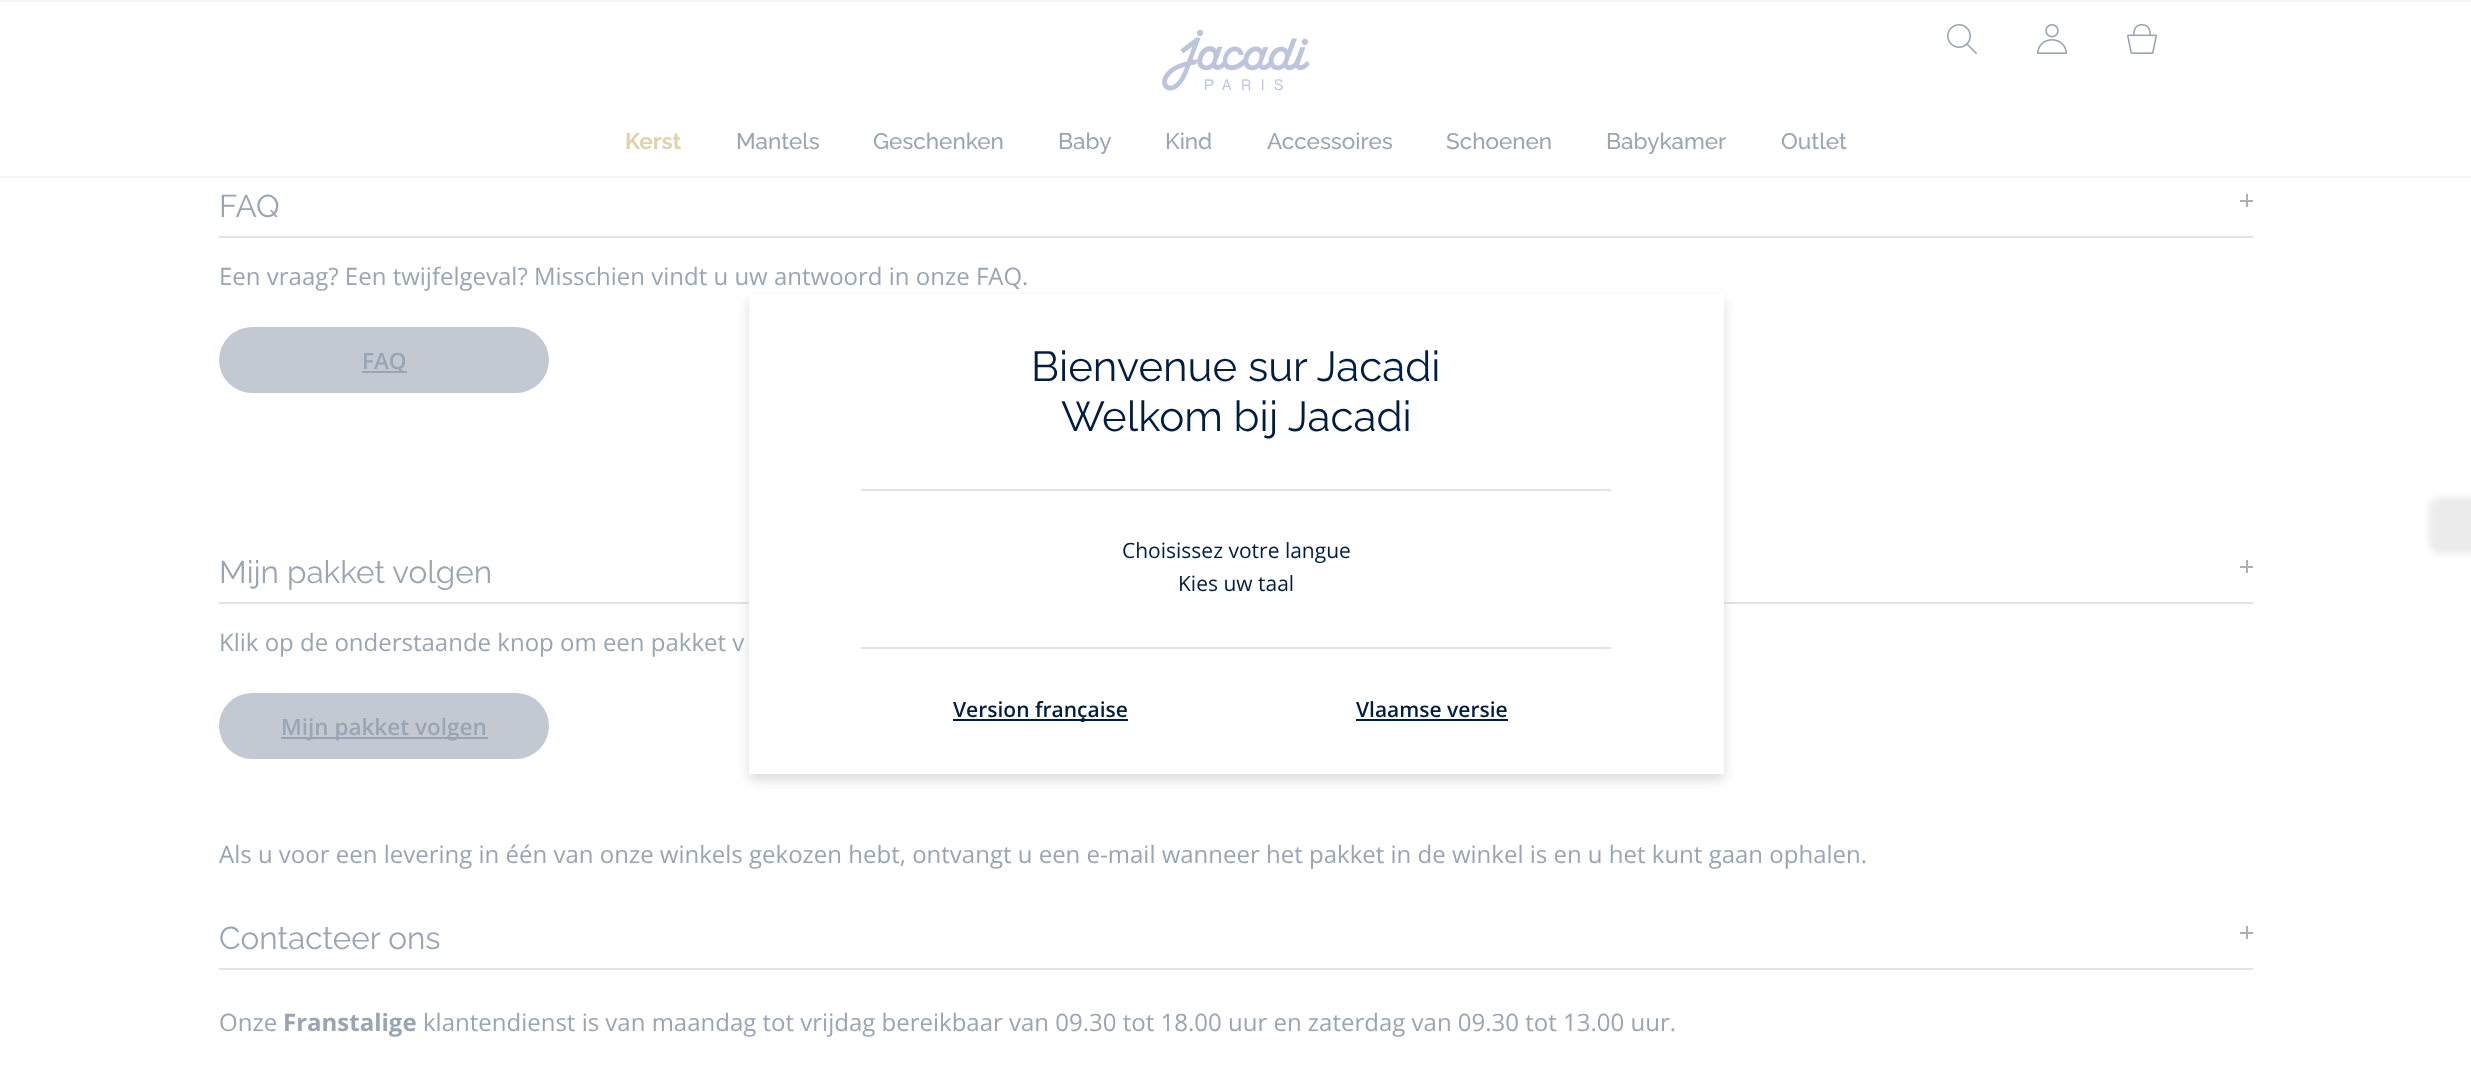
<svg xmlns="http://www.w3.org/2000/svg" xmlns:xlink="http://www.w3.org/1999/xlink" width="2471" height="1067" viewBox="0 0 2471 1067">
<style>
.cls-1{font:100 22.5px 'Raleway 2';fill:#e2d2ab}
.cls-2{font:100 22.5px 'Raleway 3';fill:#99a5b3}
.cls-3{font:100 31.5px Raleway;fill:#99a5b3}
.cls-4{font:24px Open Sans;fill:#99a5b3}
.cls-5{font:600 22.5px Open Sans;fill:#99a5b3}
.cls-6{font:bold 24px Open Sans;fill:#99a5b3}
.cls-7{font:100 42px Raleway;fill:#011e41}
.cls-8{font:21px Open Sans;fill:#011e41}
.cls-9{font:600 21px Open Sans;fill:#011e41}
</style>
<rect width="100%" height="100%" fill="#ffffff"/>
<rect fill="#f3f4f6" x="0" y="0" width="2471" height="2"/>
<image xlink:href="image0.png" x="1162" y="29" width="148" height="62"/>
<image xlink:href="image1.png" x="1947" y="24" width="30" height="30"/>
<image xlink:href="image2.png" x="2037" y="24" width="30" height="30"/>
<image xlink:href="image3.png" x="2127" y="24" width="30" height="30"/>
<rect fill="#f3f4f7" x="0" y="176" width="2471" height="2"/>
<rect fill="#e3e3e3" x="219" y="236" width="2034" height="2"/>
<rect fill="#aeb0b6" x="2246" y="194" width="2" height="13"/>
<rect fill="#aeb0b6" x="2240" y="200" width="13" height="2"/>
<rect fill="#c3c9d2" x="219" y="327" width="330" height="66" rx="33"/>
<rect fill="#99a5b3" x="362" y="371" width="45" height="2"/>
<rect fill="#e3e3e3" x="219" y="602" width="2034" height="2"/>
<rect fill="#aeb0b6" x="2246" y="560" width="2" height="13"/>
<rect fill="#aeb0b6" x="2240" y="566" width="13" height="2"/>
<rect fill="#c3c9d2" x="219" y="693" width="330" height="66" rx="33"/>
<rect fill="#99a5b3" x="281" y="737" width="207" height="2"/>
<rect fill="#e3e3e3" x="219" y="968" width="2034" height="2"/>
<rect fill="#aeb0b6" x="2246" y="926" width="2" height="13"/>
<rect fill="#aeb0b6" x="2240" y="932" width="13" height="2"/>
<rect fill="#bababa" fill-opacity="0.5" filter="blur(6px)" x="749" y="300" width="975" height="480"/>
<rect fill="#ffffff" x="749" y="294" width="975" height="480"/>
<rect fill="#e1e5ef" x="861" y="489" width="750" height="2"/>
<rect fill="#e1e5ef" x="861" y="647" width="750" height="2"/>
<rect fill="#011e41" x="953" y="719" width="175" height="2"/>
<rect fill="#011e41" x="1356" y="719" width="152" height="2"/>
<rect fill="#999999" fill-opacity="0.2" filter="blur(3px)" x="2429" y="497" width="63" height="57" rx="12"/>
<text class="cls-1" x="625" y="149">Kerst</text>
<text class="cls-2" x="736" y="149">Mantels</text>
<text class="cls-2" x="873" y="149">Geschenken</text>
<text class="cls-2" x="1058" y="149">Baby</text>
<text class="cls-2" x="1165" y="149">Kind</text>
<text class="cls-2" x="1267" y="149">Accessoires</text>
<text class="cls-2" x="1446" y="149">Schoenen</text>
<text class="cls-2" x="1606" y="149">Babykamer</text>
<text class="cls-2" x="1781" y="149">Outlet</text>
<text class="cls-3" x="219" y="217">FAQ</text>
<text class="cls-4" x="219" y="285">Een vraag? Een twijfelgeval? Misschien vindt u uw antwoord in onze FAQ.</text>
<text class="cls-5" x="362" y="369">FAQ</text>
<text class="cls-3" x="219" y="583">Mijn pakket volgen</text>
<text class="cls-4" x="219" y="651">Klik op de onderstaande knop om een pakket v</text>
<text class="cls-5" x="281" y="735">Mijn pakket volgen</text>
<text class="cls-4" x="219" y="863">Als u voor een levering in één van onze winkels gekozen hebt, ontvangt u een e-mail wanneer het pakket in de winkel is en u het kunt gaan ophalen.</text>
<text class="cls-3" x="219" y="949">Contacteer ons</text>
<text class="cls-4" x="219" y="1031">Onze</text>
<text class="cls-6" x="283" y="1031">Franstalige</text>
<text class="cls-4" x="423" y="1031">klantendienst is van maandag tot vrijdag bereikbaar van 09.30 tot 18.00 uur en zaterdag van 09.30 tot 13.00 uur.</text>
<text class="cls-7" x="1031" y="381">Bienvenue sur Jacadi</text>
<text class="cls-7" x="1061" y="431">Welkom bij Jacadi</text>
<text class="cls-8" x="1122" y="558">Choisissez votre langue</text>
<text class="cls-8" x="1178" y="591">Kies uw taal</text>
<text class="cls-9" x="953" y="717">Version française</text>
<text class="cls-9" x="1356" y="717">Vlaamse versie</text>
</svg>
